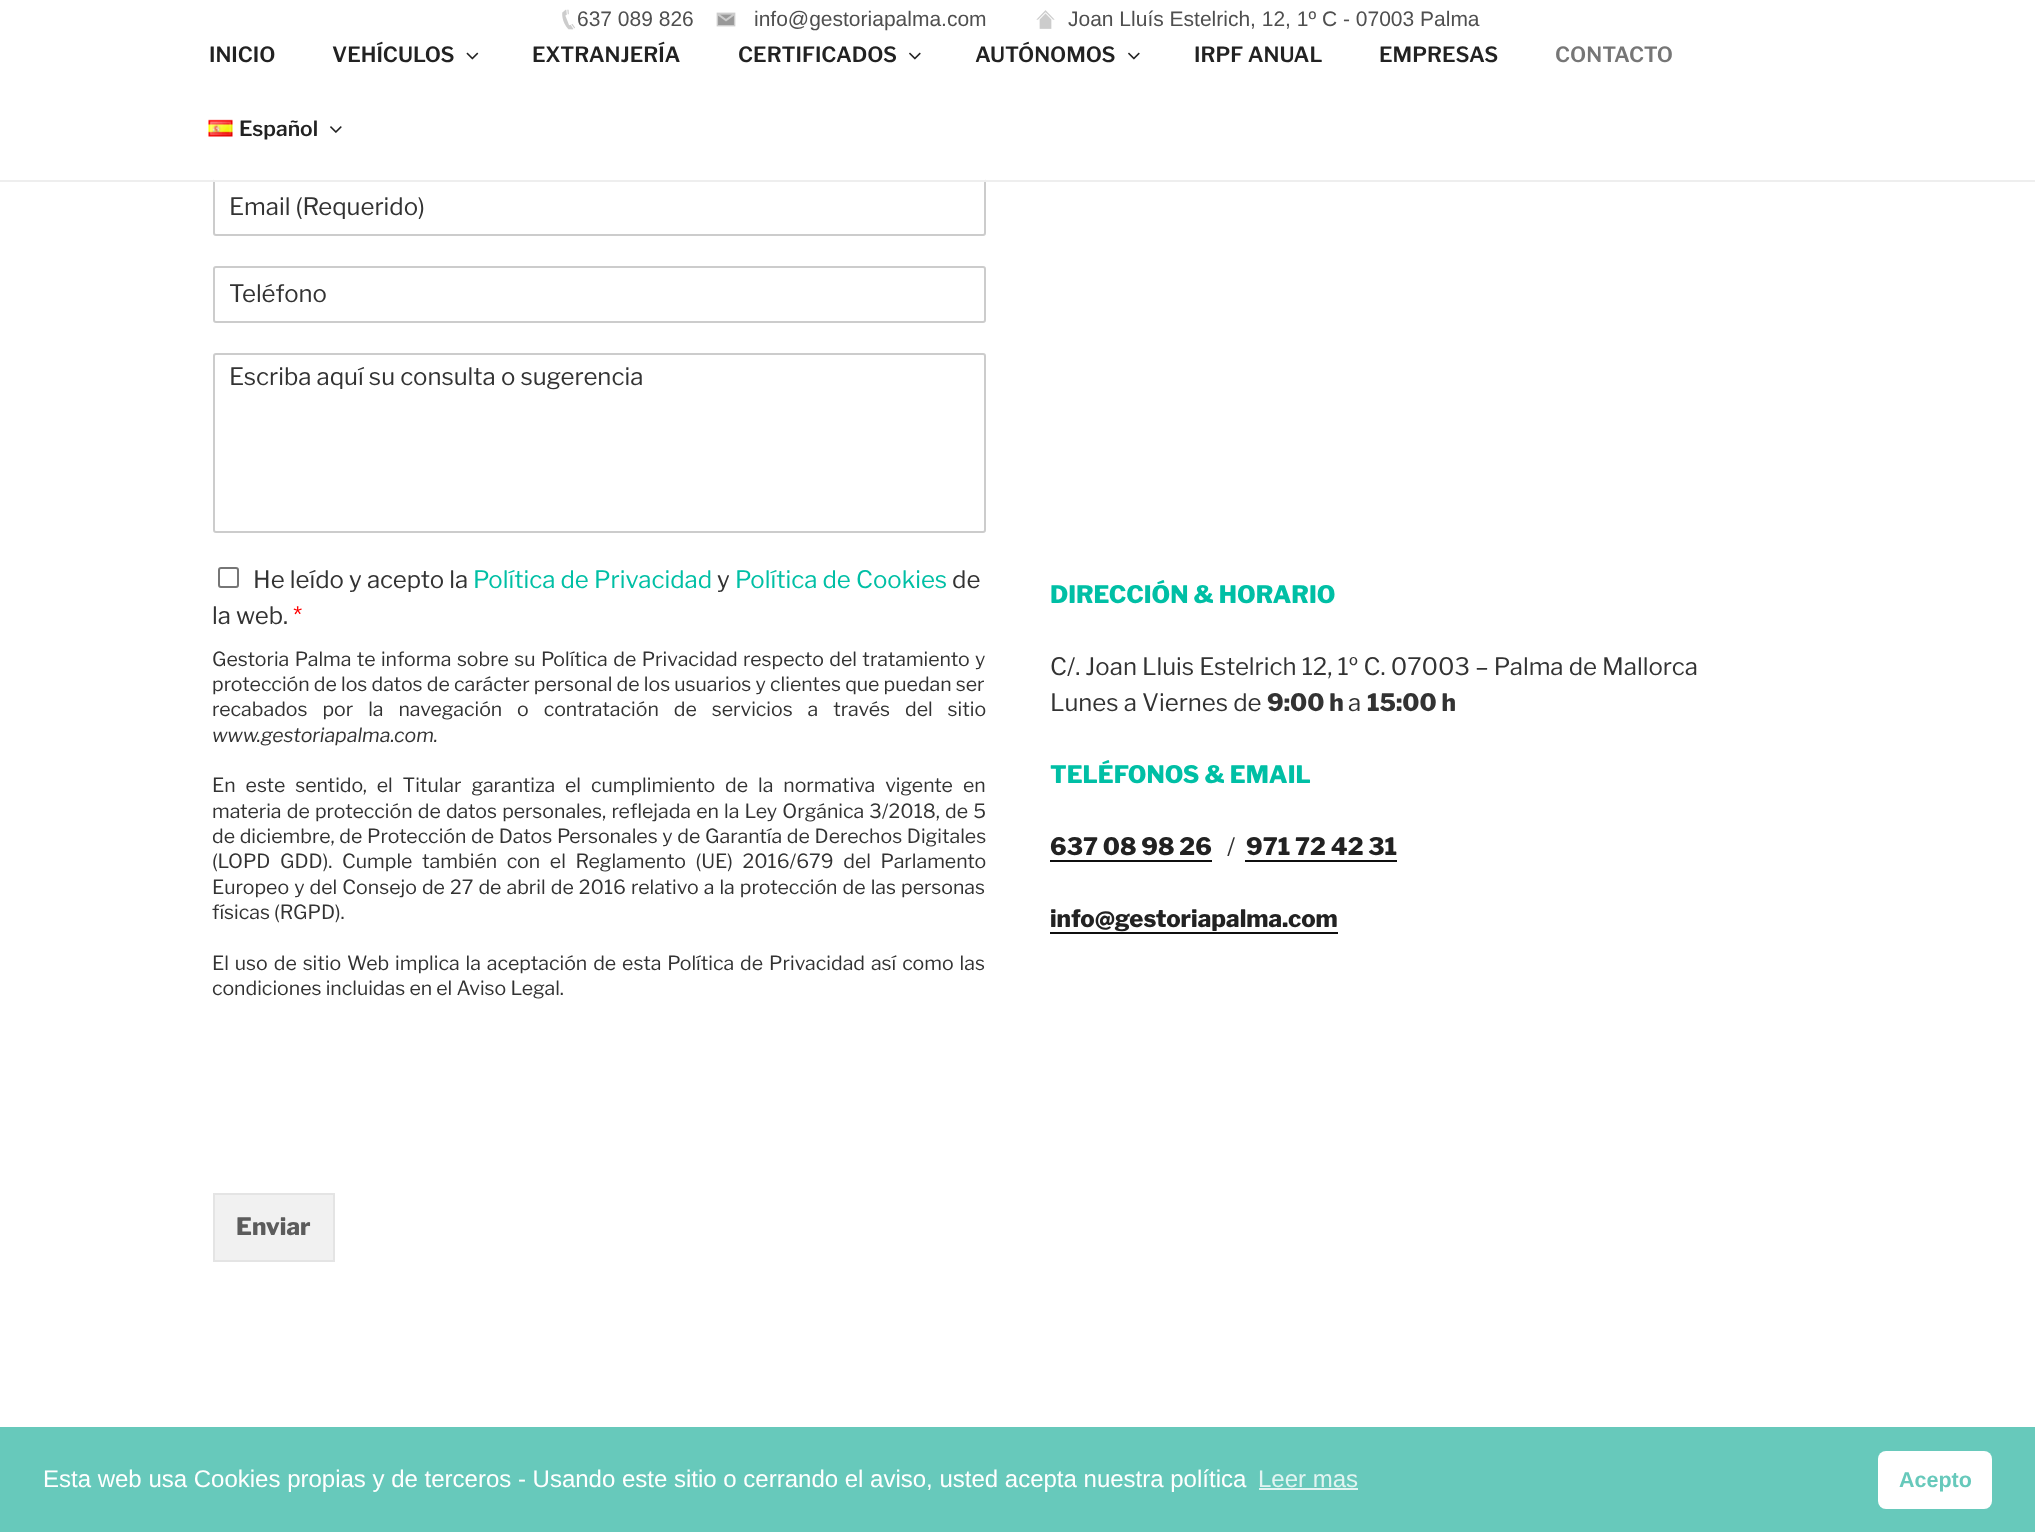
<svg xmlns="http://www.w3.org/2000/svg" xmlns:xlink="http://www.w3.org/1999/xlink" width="2035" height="1532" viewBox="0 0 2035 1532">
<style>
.cls-1{font:21px Liberation Sans;fill:#4f4f4f}
.cls-2{font:600 21px Libre Franklin;fill:#222222}
.cls-3{font:600 21px Libre Franklin;fill:#767676}
.cls-4{font:24px Libre Franklin;fill:#333333}
.cls-5{font:24px Libre Franklin;fill:#00bfa5}
.cls-6{font:24px Libre Franklin;fill:#ff0000}
.cls-7{font:19.5px Libre Franklin;fill:#333333}
.cls-8{font:italic 19.5px Libre Franklin;fill:#333333}
.cls-9{font:800 24px Libre Franklin;fill:#5c5c5c}
.cls-10{font:800 24px Libre Franklin;fill:#00bfa5}
.cls-11{font:800 24px Libre Franklin;fill:#333333}
.cls-12{font:800 24px Libre Franklin;fill:#222222}
.cls-13{font:24px Liberation Sans;fill:#ffffff}
.cls-14{font:24px Liberation Sans;fill:#e1f4f1}
.cls-15{font:bold 21.5px Liberation Sans;fill:#67c9bb}
</style>
<rect width="100%" height="100%" fill="#ffffff"/>
<image xlink:href="image0.png" x="562" y="9" width="13" height="21"/>
<image xlink:href="image1.png" x="716" y="12" width="20" height="15"/>
<image xlink:href="image2.png" x="1036" y="10" width="19" height="19"/>
<rect fill="none" stroke="#cccccc" stroke-width="2" x="214" y="180" width="771" height="55" rx="2"/>
<rect fill="#ffffff" x="214" y="179" width="771" height="1"/>
<rect fill="#eeeeee" x="0" y="180" width="2035" height="2"/>
<image xlink:href="image3.png" x="466" y="52" width="13" height="8"/>
<image xlink:href="image4.png" x="909" y="52" width="12" height="8"/>
<image xlink:href="image4.png" x="1128" y="52" width="12" height="8"/>
<image xlink:href="image5.png" x="208" y="119" width="25" height="18"/>
<image xlink:href="image6.png" x="330" y="126" width="12" height="7"/>
<rect fill="none" stroke="#cccccc" stroke-width="2" x="214" y="267" width="771" height="55" rx="2"/>
<rect fill="none" stroke="#cccccc" stroke-width="2" x="214" y="354" width="771" height="178" rx="2"/>
<rect fill="none" stroke="#767676" stroke-width="2" x="219" y="568" width="19" height="19" rx="2"/>
<rect fill="#f1f1f1" stroke="#e4e4e4" stroke-width="2" x="214" y="1194" width="120" height="67"/>
<rect fill="#0f0f0f" x="1050" y="860" width="162" height="2"/>
<rect fill="#0f0f0f" x="1245" y="860" width="152" height="2"/>
<rect fill="#0f0f0f" x="1050" y="932" width="288" height="2"/>
<rect fill="#67c9bb" x="0" y="1427" width="2035" height="105"/>
<rect fill="#e1f4f1" x="1259" y="1488" width="99" height="2"/>
<rect fill="#ffffff" x="1878" y="1451" width="114" height="58" rx="8"/>
<text class="cls-1" x="577" y="26">637 089 826</text>
<text class="cls-1" x="754" y="26">info@gestoriapalma.com</text>
<text class="cls-1" x="1068" y="26">Joan Lluís Estelrich, 12, 1º C - 07003 Palma</text>
<text class="cls-2" x="209" y="62">INICIO</text>
<text class="cls-2" x="332" y="62">VEHÍCULOS</text>
<text class="cls-2" x="532" y="62">EXTRANJERÍA</text>
<text class="cls-2" x="738" y="62">CERTIFICADOS</text>
<text class="cls-2" x="975" y="62">AUTÓNOMOS</text>
<text class="cls-2" x="1194" y="62">IRPF ANUAL</text>
<text class="cls-2" x="1379" y="62">EMPRESAS</text>
<text class="cls-3" x="1555" y="62">CONTACTO</text>
<text class="cls-2" x="239" y="136">Español</text>
<text class="cls-4" x="229" y="215">Email (Requerido)</text>
<text class="cls-4" x="229" y="302">Teléfono</text>
<text class="cls-4" x="229" y="385">Escriba aquí su consulta o sugerencia</text>
<text class="cls-4" x="253" y="588">He leído y acepto la</text>
<text class="cls-5" x="473" y="588">Política de Privacidad</text>
<text class="cls-4" x="717" y="588">y</text>
<text class="cls-5" x="735" y="588">Política de Cookies</text>
<text class="cls-4" x="952" y="588">de</text>
<text class="cls-4" x="212" y="624">la web.</text>
<text class="cls-6" x="293" y="624">*</text>
<text class="cls-7"><tspan x="212" y="666" word-spacing="1.25">Gestoria Palma te informa sobre su Política de Privacidad respecto del tratamiento y</tspan><tspan x="212" y="691">protección de los datos de carácter personal de los usuarios y clientes que puedan ser</tspan><tspan x="212" y="716" word-spacing="10.75">recabados por la navegación o contratación de servicios a través del sitio</tspan></text>
<text class="cls-8" x="212" y="742">www.gestoriapalma.com.</text>
<text class="cls-7"><tspan x="212" y="792" word-spacing="5.75">En este sentido, el Titular garantiza el cumplimiento de la normativa vigente en</tspan><tspan x="212" y="818" word-spacing="1">materia de protección de datos personales, reflejada en la Ley Orgánica 3/2018, de 5</tspan><tspan x="212" y="843" word-spacing="0.5">de diciembre, de Protección de Datos Personales y de Garantía de Derechos Digitales</tspan><tspan x="212" y="868" word-spacing="5.5">(LOPD GDD). Cumple también con el Reglamento (UE) 2016/679 del Parlamento</tspan><tspan x="212" y="894" word-spacing="0.9">Europeo y del Consejo de 27 de abril de 2016 relativo a la protección de las personas</tspan><tspan x="212" y="919">físicas (RGPD).</tspan></text>
<text class="cls-7"><tspan x="212" y="970" word-spacing="1.75">El uso de sitio Web implica la aceptación de esta Política de Privacidad así como las</tspan><tspan x="212" y="995">condiciones incluidas en el Aviso Legal.</tspan></text>
<text class="cls-9" x="236" y="1235">Enviar</text>
<text class="cls-10" x="1050" y="603">DIRECCIÓN &amp; HORARIO</text>
<text class="cls-4"><tspan x="1050" y="675">C/. Joan Lluis Estelrich 12, 1º C. 07003 – Palma de Mallorca</tspan><tspan x="1050" y="711">Lunes a Viernes de</tspan></text>
<text class="cls-11" x="1267" y="711">9:00 h</text>
<text class="cls-4" x="1348" y="711">a</text>
<text class="cls-11" x="1367" y="711">15:00 h</text>
<text class="cls-10" x="1050" y="783">TELÉFONOS &amp; EMAIL</text>
<text class="cls-12" x="1050" y="855">637 08 98 26</text>
<text class="cls-4" x="1227" y="855">/</text>
<text class="cls-12" x="1246" y="855">971 72 42 31</text>
<text class="cls-12" x="1050" y="927">info@gestoriapalma.com</text>
<text class="cls-13" x="43" y="1487">Esta web usa Cookies propias y de terceros - Usando este sitio o cerrando el aviso, usted acepta nuestra política</text>
<text class="cls-14" x="1258" y="1487">Leer mas</text>
<text class="cls-15" x="1899" y="1487">Acepto</text>
</svg>
